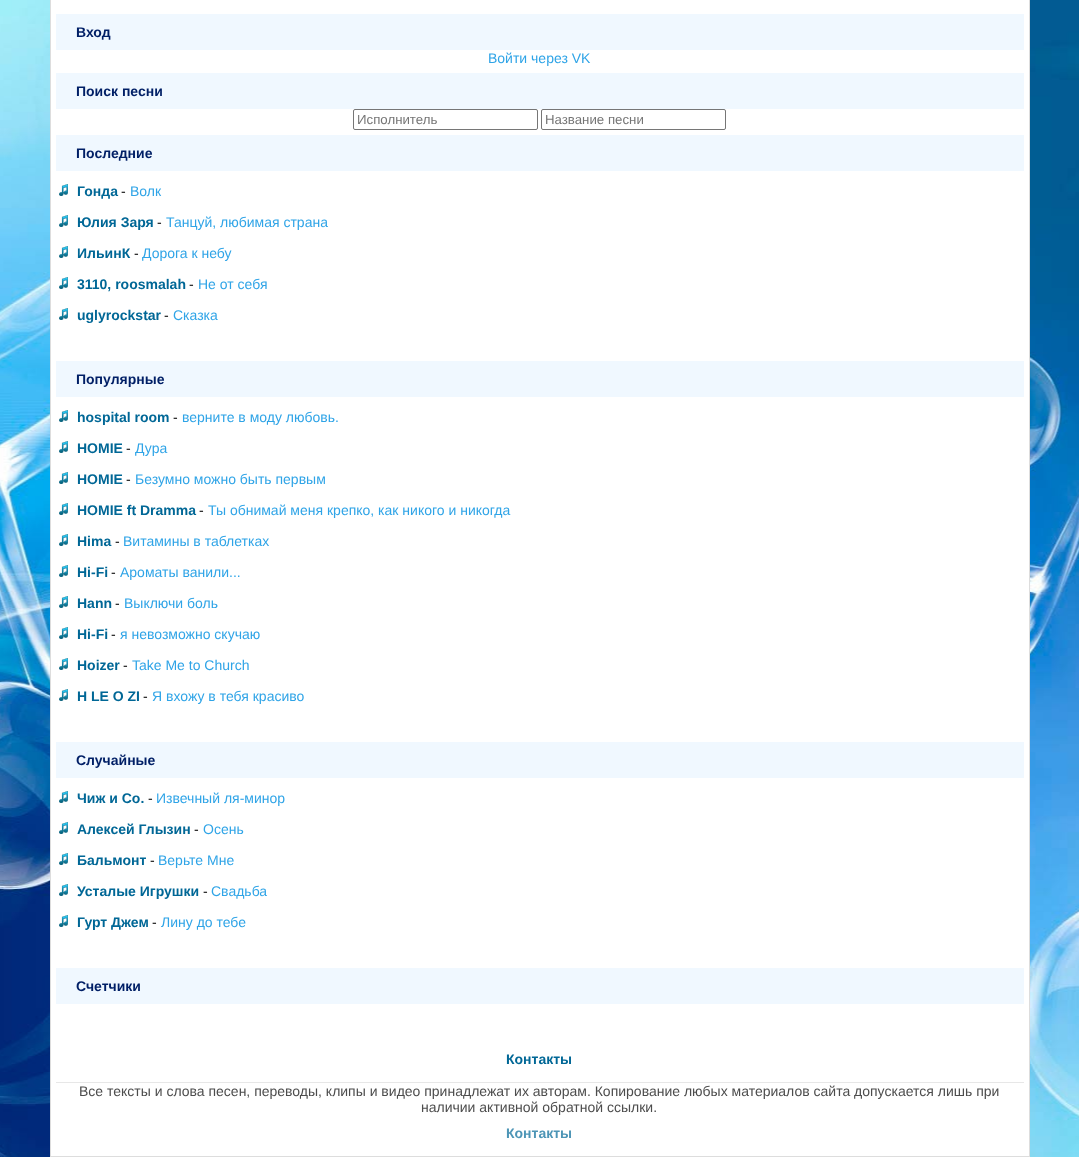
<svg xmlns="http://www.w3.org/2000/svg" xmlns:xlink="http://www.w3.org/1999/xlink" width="1079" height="1157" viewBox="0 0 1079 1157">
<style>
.cls-1{font:bold 14px Liberation Sans;fill:#001f66}
.cls-2{font:14px Liberation Sans;fill:#2fa4e7}
.cls-3{font:13.25px Liberation Sans;fill:#757575}
.cls-4{font:bold 14px Liberation Sans;fill:#006796}
.cls-5{font:14px Liberation Sans;fill:#000000}
.cls-6{font:14px Liberation Sans;fill:#4d4d4d}
.cls-7{font:bold 14px Liberation Sans;fill:#4d95b6}
</style>
<rect width="100%" height="100%" fill="#ffffff"/>
<image xlink:href="image0.png" x="0" y="0" width="1079" height="1157"/>
<rect fill="#ffffff" stroke="#dddddd" x="50.5" y="-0.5" width="979" height="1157"/>
<rect fill="#f0f8ff" x="56" y="14" width="968" height="36"/>
<rect fill="#f0f8ff" x="56" y="73" width="968" height="36"/>
<rect fill="none" stroke="#767676" x="353.5" y="109.5" width="184" height="20" rx="1.5"/>
<rect fill="none" stroke="#767676" x="541.5" y="109.5" width="184" height="20" rx="1.5"/>
<rect fill="#f0f8ff" x="56" y="135" width="968" height="36"/>
<image xlink:href="image1.png" x="59" y="184" width="9" height="12"/>
<image xlink:href="image1.png" x="59" y="215" width="9" height="12"/>
<image xlink:href="image1.png" x="59" y="246" width="9" height="12"/>
<image xlink:href="image1.png" x="59" y="277" width="9" height="12"/>
<image xlink:href="image1.png" x="59" y="308" width="9" height="12"/>
<rect fill="#f0f8ff" x="56" y="361" width="968" height="36"/>
<image xlink:href="image1.png" x="59" y="410" width="9" height="12"/>
<image xlink:href="image1.png" x="59" y="441" width="9" height="12"/>
<image xlink:href="image1.png" x="59" y="472" width="9" height="12"/>
<image xlink:href="image1.png" x="59" y="503" width="9" height="12"/>
<image xlink:href="image1.png" x="59" y="534" width="9" height="12"/>
<image xlink:href="image1.png" x="59" y="565" width="9" height="12"/>
<image xlink:href="image1.png" x="59" y="596" width="9" height="12"/>
<image xlink:href="image1.png" x="59" y="627" width="9" height="12"/>
<image xlink:href="image1.png" x="59" y="658" width="9" height="12"/>
<image xlink:href="image1.png" x="59" y="689" width="9" height="12"/>
<rect fill="#f0f8ff" x="56" y="742" width="968" height="36"/>
<image xlink:href="image1.png" x="59" y="791" width="9" height="12"/>
<image xlink:href="image1.png" x="59" y="822" width="9" height="12"/>
<image xlink:href="image1.png" x="59" y="853" width="9" height="12"/>
<image xlink:href="image1.png" x="59" y="884" width="9" height="12"/>
<image xlink:href="image1.png" x="59" y="915" width="9" height="12"/>
<rect fill="#f0f8ff" x="56" y="968" width="968" height="36"/>
<rect fill="#e7e7e7" x="56" y="1082" width="968" height="1"/>
<text class="cls-1" x="76" y="37">Вход</text>
<text class="cls-2" x="488" y="63">Войти через VK</text>
<text class="cls-1" x="76" y="96">Поиск песни</text>
<text class="cls-3" x="357" y="124">Исполнитель</text>
<text class="cls-3" x="545" y="124">Название песни</text>
<text class="cls-1" x="76" y="158">Последние</text>
<text class="cls-4" x="77" y="196">Гонда</text>
<text class="cls-5" x="121" y="196">-</text>
<text class="cls-2" x="130" y="196">Волк</text>
<text class="cls-4" x="77" y="227">Юлия Заря</text>
<text class="cls-5" x="157" y="227">-</text>
<text class="cls-2" x="166" y="227">Танцуй, любимая страна</text>
<text class="cls-4" x="77" y="258">ИльинК</text>
<text class="cls-5" x="134" y="258">-</text>
<text class="cls-2" x="142" y="258">Дорога к небу</text>
<text class="cls-4" x="77" y="289">3110, roosmalah</text>
<text class="cls-5" x="189" y="289">-</text>
<text class="cls-2" x="198" y="289">Не от себя</text>
<text class="cls-4" x="77" y="320">uglyrockstar</text>
<text class="cls-5" x="164" y="320">-</text>
<text class="cls-2" x="173" y="320">Сказка</text>
<text class="cls-1" x="76" y="384">Популярные</text>
<text class="cls-4" x="77" y="422">hospital room</text>
<text class="cls-5" x="173" y="422">-</text>
<text class="cls-2" x="182" y="422">верните в моду любовь.</text>
<text class="cls-4" x="77" y="453">HOMIE</text>
<text class="cls-5" x="126" y="453">-</text>
<text class="cls-2" x="135" y="453">Дура</text>
<text class="cls-4" x="77" y="484">HOMIE</text>
<text class="cls-5" x="126" y="484">-</text>
<text class="cls-2" x="135" y="484">Безумно можно быть первым</text>
<text class="cls-4" x="77" y="515">HOMIE ft Dramma</text>
<text class="cls-5" x="199" y="515">-</text>
<text class="cls-2" x="208" y="515">Ты обнимай меня крепко, как никого и никогда</text>
<text class="cls-4" x="77" y="546">Hima</text>
<text class="cls-5" x="115" y="546">-</text>
<text class="cls-2" x="123" y="546">Витамины в таблетках</text>
<text class="cls-4" x="77" y="577">Hi-Fi</text>
<text class="cls-5" x="111" y="577">-</text>
<text class="cls-2" x="120" y="577">Ароматы ванили...</text>
<text class="cls-4" x="77" y="608">Hann</text>
<text class="cls-5" x="115" y="608">-</text>
<text class="cls-2" x="124" y="608">Выключи боль</text>
<text class="cls-4" x="77" y="639">Hi-Fi</text>
<text class="cls-5" x="111" y="639">-</text>
<text class="cls-2" x="120" y="639">я невозможно скучаю</text>
<text class="cls-4" x="77" y="670">Hoizer</text>
<text class="cls-5" x="123" y="670">-</text>
<text class="cls-2" x="132" y="670">Take Me to Church</text>
<text class="cls-4" x="77" y="701">H LE O ZI</text>
<text class="cls-5" x="143" y="701">-</text>
<text class="cls-2" x="152" y="701">Я вхожу в тебя красиво</text>
<text class="cls-1" x="76" y="765">Случайные</text>
<text class="cls-4" x="77" y="803">Чиж и Сo.</text>
<text class="cls-5" x="148" y="803">-</text>
<text class="cls-2" x="156" y="803">Извечный ля-минор</text>
<text class="cls-4" x="77" y="834">Алексей Глызин</text>
<text class="cls-5" x="194" y="834">-</text>
<text class="cls-2" x="203" y="834">Осень</text>
<text class="cls-4" x="77" y="865">Бальмонт</text>
<text class="cls-5" x="150" y="865">-</text>
<text class="cls-2" x="158" y="865">Верьте Мне</text>
<text class="cls-4" x="77" y="896">Усталые Игрушки</text>
<text class="cls-5" x="203" y="896">-</text>
<text class="cls-2" x="211" y="896">Свадьба</text>
<text class="cls-4" x="77" y="927">Гурт Джем</text>
<text class="cls-5" x="152" y="927">-</text>
<text class="cls-2" x="161" y="927">Лину до тебе</text>
<text class="cls-1" x="76" y="991">Счетчики</text>
<text class="cls-4" x="506" y="1064">Контакты</text>
<text class="cls-6" x="79" y="1096">Все тексты и слова песен, переводы, клипы и видео принадлежат их авторам. Копирование любых материалов сайта допускается лишь при</text>
<text class="cls-6" x="421" y="1112">наличии активной обратной ссылки.</text>
<text class="cls-7" x="506" y="1138">Контакты</text>
</svg>
